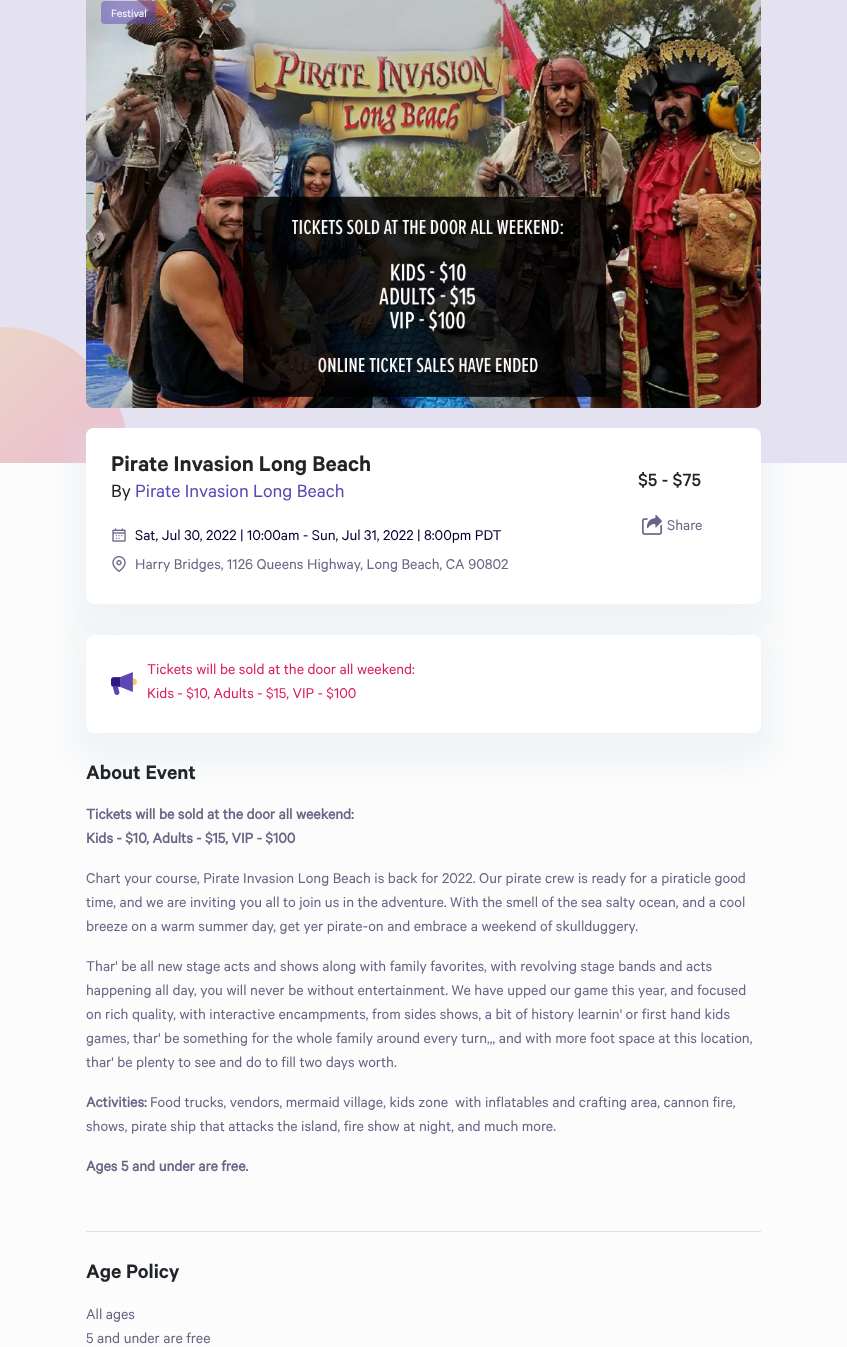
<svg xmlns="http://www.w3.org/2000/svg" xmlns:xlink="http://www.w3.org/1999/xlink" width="847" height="1347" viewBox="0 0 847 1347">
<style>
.cls-1{font:12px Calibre;fill:#ffffff}
.cls-2{font:600 24px Calibre;fill:#212529}
.cls-3{font:20px Calibre;fill:#212529}
.cls-4{font:20px Calibre;fill:#5e46b5}
.cls-5{font:16px Calibre;fill:#020233}
.cls-6{font:16px Calibre;fill:#676585}
.cls-7{font:500 20px Calibre;fill:#212529}
.cls-8{font:16px Calibre;fill:#d81e5b}
.cls-9{font:600 22px Calibre;fill:#212529}
.cls-10{font:bold 16px Calibre;fill:#676585}
</style>
<defs>
<linearGradient id="g1" gradientUnits="userSpaceOnUse" x1="7.3" y1="327" x2="128" y2="456"><stop offset="0" stop-color="#ebd4c8"/><stop offset="1" stop-color="#ebbccf"/></linearGradient>
</defs>
<rect width="100%" height="100%" fill="#fcfcfc"/>
<rect fill="#e4e1f1" x="0" y="0" width="847" height="463"/>
<path fill="url(#g1)" d="M1 327C74 327 133 390 128 463H0V327Z"/>
<image xlink:href="image0.png" x="86" y="0" width="675" height="408"/>
<rect fill="#5e46b5" fill-opacity="0.5" x="101" y="1" width="55" height="23" rx="4"/>
<rect fill="#dde6ed" fill-opacity="0.4" filter="blur(16px)" x="73" y="431" width="701" height="202" rx="21"/>
<rect fill="#ffffff" x="86" y="428" width="675" height="176" rx="8"/>
<image xlink:href="image1.png" x="112" y="528" width="14" height="14"/>
<image xlink:href="image2.png" x="112" y="556" width="14" height="16"/>
<image xlink:href="image3.png" x="642" y="514" width="20" height="21"/>
<rect fill="#dde6ed" fill-opacity="0.4" filter="blur(16px)" x="73" y="638" width="701" height="124" rx="21"/>
<rect fill="#ffffff" x="86" y="635" width="675" height="98" rx="8"/>
<image xlink:href="image4.png" x="111" y="672" width="26" height="23"/>
<rect fill="#dedee4" x="86" y="1231" width="675" height="1"/>
<text class="cls-1" x="111" y="17">Festival</text>
<text class="cls-2" x="111" y="471">Pirate Invasion Long Beach</text>
<text class="cls-3" x="111" y="497">By</text>
<text class="cls-4" x="135" y="497">Pirate Invasion Long Beach</text>
<text class="cls-5" x="135" y="540">Sat, Jul 30, 2022 | 10:00am - Sun, Jul 31, 2022 | 8:00pm PDT</text>
<text class="cls-6" x="135" y="569">Harry Bridges, 1126 Queens Highway, Long Beach, CA 90802</text>
<text class="cls-7" x="638" y="486">$5 - $75</text>
<text class="cls-6" x="667" y="530">Share</text>
<text class="cls-8"><tspan x="147" y="674">Tickets will be sold at the door all weekend:</tspan><tspan x="147" y="698">Kids - $10, Adults - $15, VIP - $100</tspan></text>
<text class="cls-9" x="86" y="779">About Event</text>
<text class="cls-10"><tspan x="86" y="819">Tickets will be sold at the door all weekend:</tspan><tspan x="86" y="843">Kids - $10, Adults - $15, VIP - $100</tspan></text>
<text class="cls-6"><tspan x="86" y="883">Chart your course, Pirate Invasion Long Beach is back for 2022. Our pirate crew is ready for a piraticle good</tspan><tspan x="86" y="907">time, and we are inviting you all to join us in the adventure. With the smell of the sea salty ocean, and a cool</tspan><tspan x="86" y="931">breeze on a warm summer day, get yer pirate-on and embrace a weekend of skullduggery.</tspan></text>
<text class="cls-6"><tspan x="86" y="971">Thar' be all new stage acts and shows along with family favorites, with revolving stage bands and acts</tspan><tspan x="86" y="995">happening all day, you will never be without entertainment. We have upped our game this year, and focused</tspan><tspan x="86" y="1019">on rich quality, with interactive encampments, from sides shows, a bit of history learnin' or first hand kids</tspan><tspan x="86" y="1043">games, thar' be something for the whole family around every turn,,, and with more foot space at this location,</tspan><tspan x="86" y="1067">thar' be plenty to see and do to fill two days worth.</tspan></text>
<text class="cls-10" x="86" y="1107">Activities:</text>
<text class="cls-6" xml:space="preserve" x="150" y="1107">Food trucks, vendors, mermaid village, kids zone  with inflatables and crafting area, cannon fire,</text>
<text class="cls-6" x="86" y="1131">shows, pirate ship that attacks the island, fire show at night, and much more.</text>
<text class="cls-10" x="86" y="1171">Ages 5 and under are free.</text>
<text class="cls-9" x="86" y="1278">Age Policy</text>
<text class="cls-6"><tspan x="86" y="1319">All ages</tspan><tspan x="86" y="1343">5 and under are free</tspan></text>
</svg>
